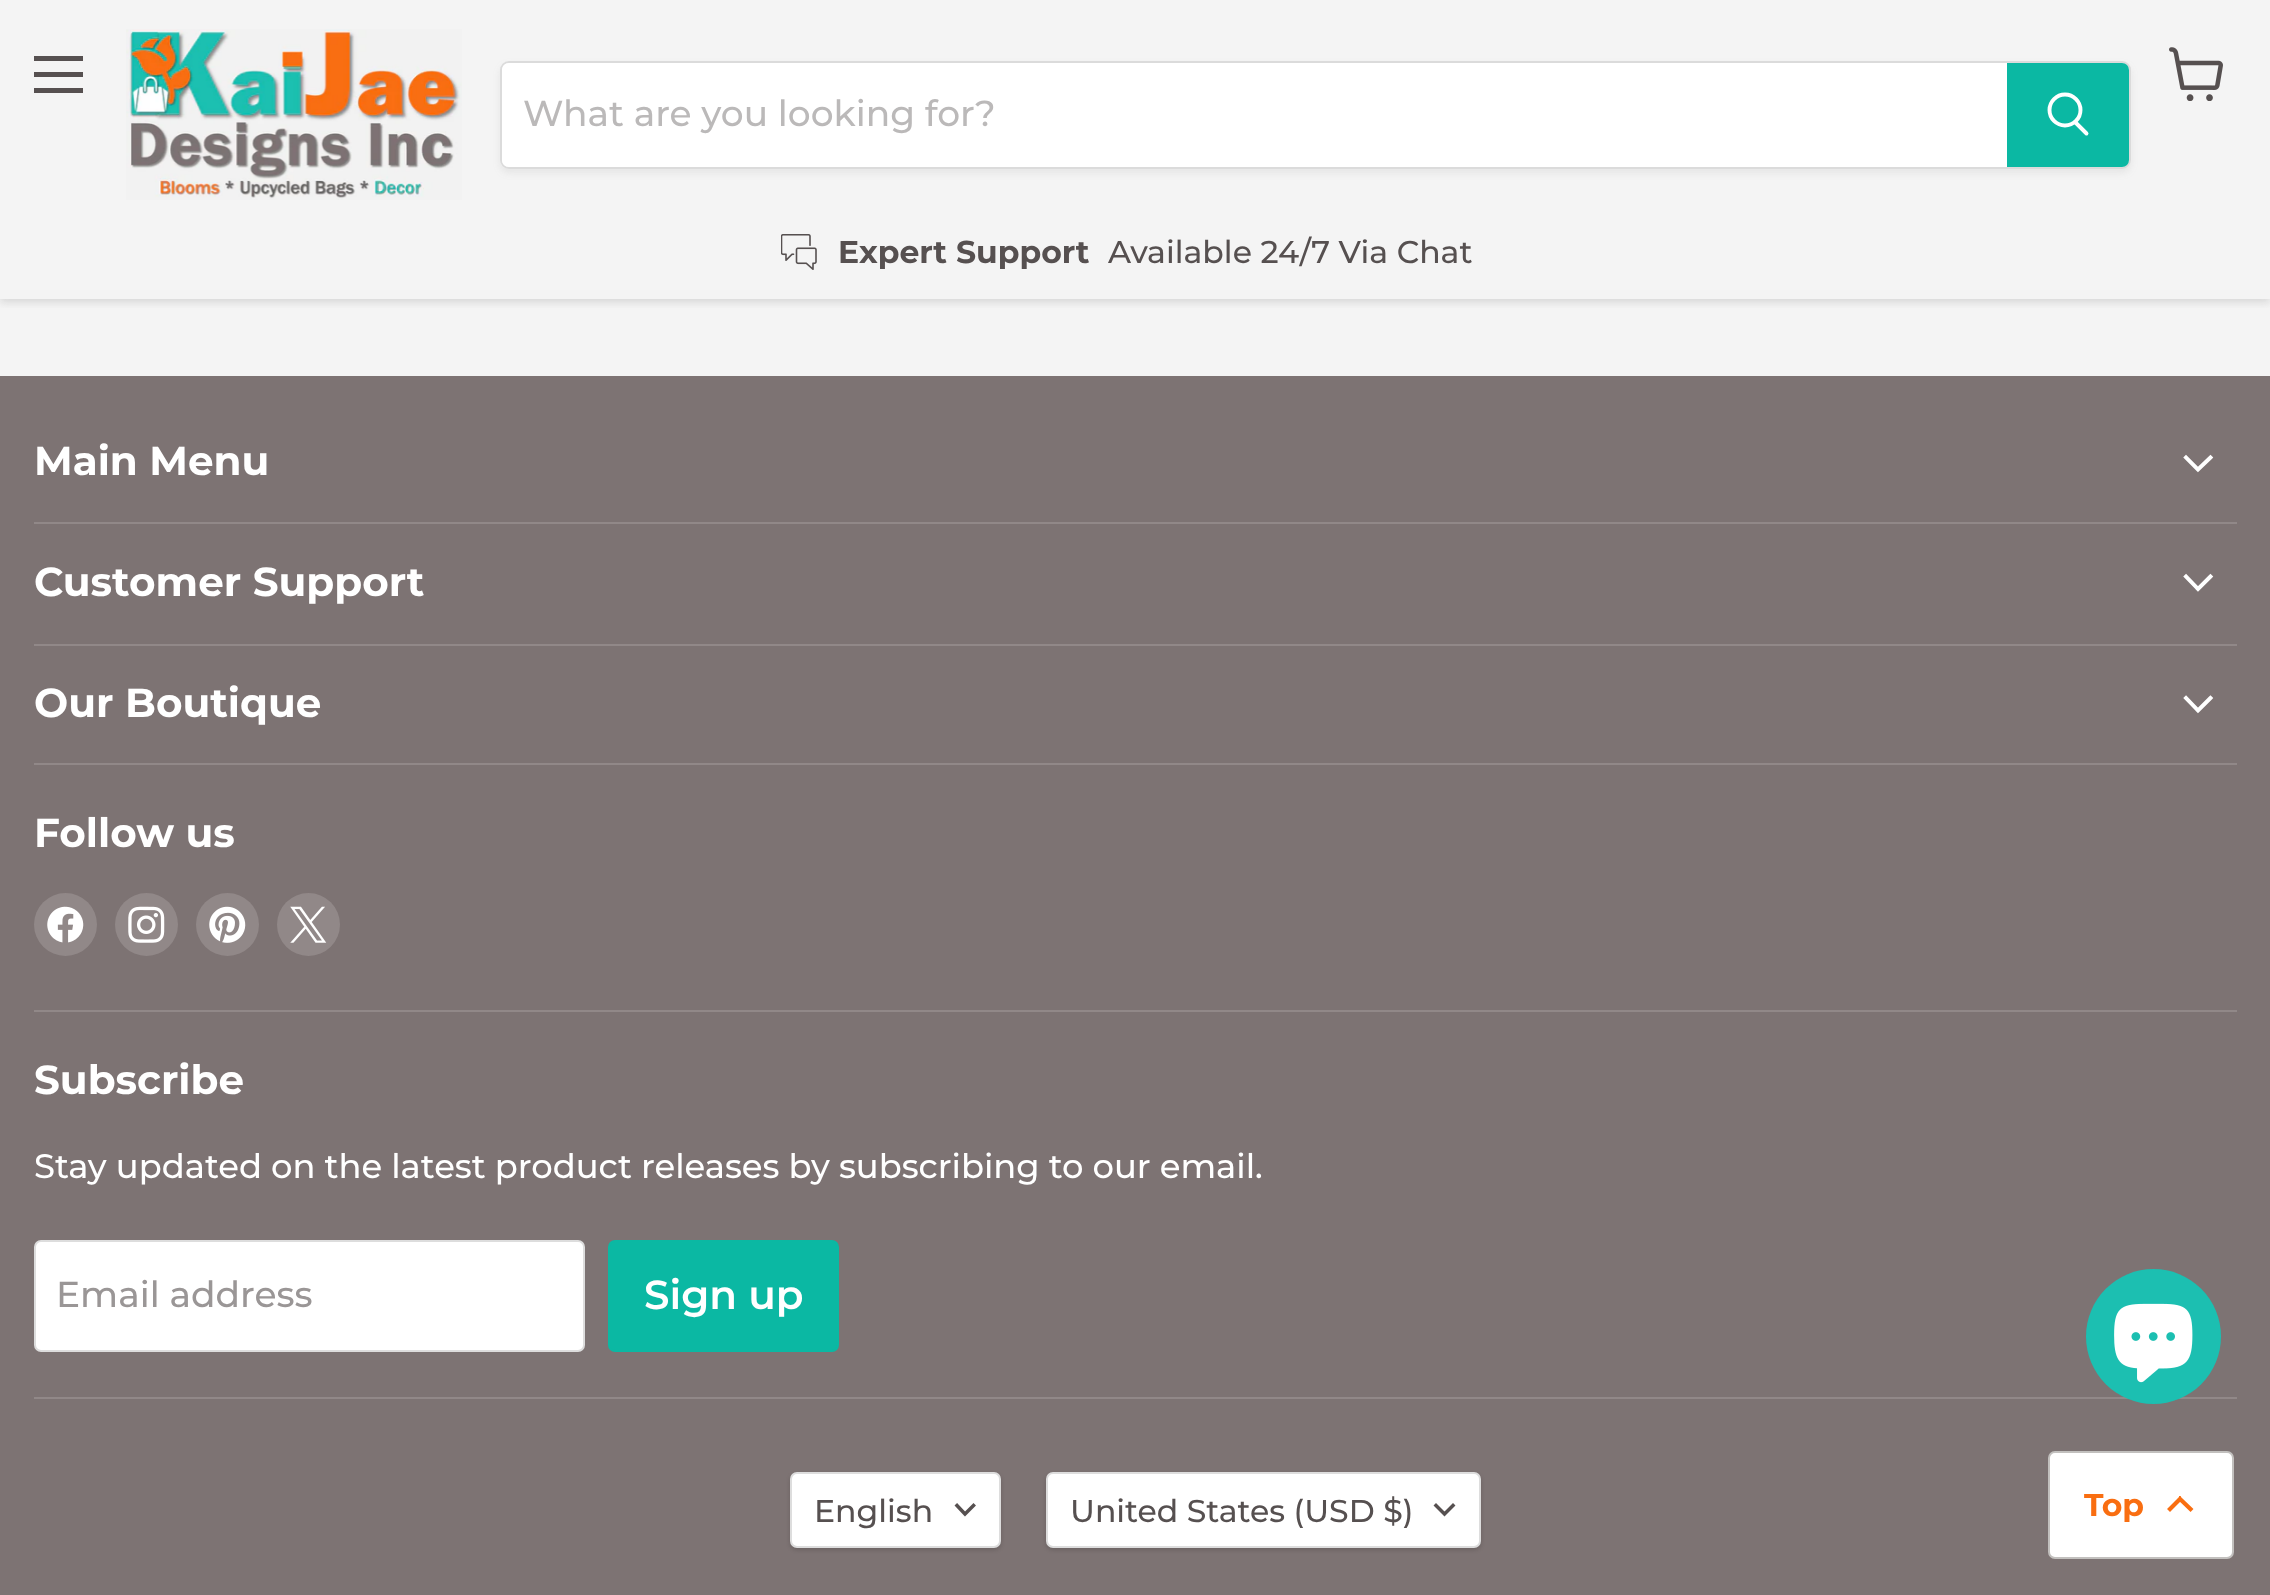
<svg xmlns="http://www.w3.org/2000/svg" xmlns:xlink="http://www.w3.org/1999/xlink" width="2270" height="1595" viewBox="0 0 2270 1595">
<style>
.cls-1{font:500 36px Montserrat;fill:#bbb9b9}
.cls-2{font:bold 31.5px Montserrat;fill:#565050}
.cls-3{font:500 31.5px Montserrat;fill:#565050}
.cls-4{font:bold 40.5px Montserrat;fill:#ffffff}
.cls-5{font:500 33.75px Montserrat;fill:#ffffff}
.cls-6{font:500 36px Montserrat;fill:#9a9696}
.cls-7{font:600 40.5px Montserrat;fill:#ffffff}
.cls-8{font:bold 31.5px Montserrat;fill:#f96e11}
</style>
<defs>
<clipPath id="clip1"><rect x="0" y="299" width="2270" height="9"/></clipPath>
<clipPath id="clip2"><path d="M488 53H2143V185H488ZM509 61H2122C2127 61 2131 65 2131 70V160C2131 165 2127 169 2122 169H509C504 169 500 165 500 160V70C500 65 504 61 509 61Z" clip-rule="evenodd"/></clipPath>
</defs>
<rect width="100%" height="100%" fill="#f4f4f4"/>
<g clip-path="url(#clip1)">
<rect fill="#7a7a7a" fill-opacity="0.25" filter="blur(4.5px)" x="0" y="2" width="2270" height="300"/>
</g>
<rect fill="#565050" x="34" y="56" width="49" height="5"/>
<rect fill="#565050" x="34" y="72" width="49" height="5"/>
<rect fill="#565050" x="34" y="88" width="49" height="5"/>
<image xlink:href="image0.png" x="2169" y="47" width="54" height="54"/>
<image xlink:href="image1.png" x="126" y="29" width="336" height="171"/>
<g clip-path="url(#clip2)">
<rect fill="#7a7a7a" fill-opacity="0.11" filter="blur(3.5px)" x="500" y="65" width="1631" height="108" rx="9"/>
</g>
<rect fill="none" stroke="#7a7a7a" stroke-opacity="0.2" stroke-width="2" x="501" y="62" width="1629" height="106" rx="8"/>
<path fill="#ffffff" d="M509 63H2007V167H509C505 167 502 164 502 160V70C502 66 505 63 509 63Z"/>
<path fill="#0bb8a3" stroke="#0bb8a3" stroke-width="2" d="M2008 64H2122C2125.5 64 2128 66.5 2128 70V160C2128 163.5 2125.5 166 2122 166H2008Z"/>
<path fill="none" stroke="#ffffff" stroke-width="3.9" stroke-linecap="round" d="M2086.5 133.5L2075.5 122.5"/>
<circle fill="none" stroke="#ffffff" stroke-width="3.9" cx="2065" cy="110" r="15.5"/>
<image xlink:href="image2.png" x="781" y="234" width="36" height="36"/>
<rect fill="#7d7373" x="0" y="376" width="2270" height="1219"/>
<rect fill="#918888" x="34" y="522" width="2203" height="2"/>
<path fill="none" stroke="#ffffff" stroke-width="3.9" stroke-linecap="square" d="M2198 469.5L2210.5 457.5M2198 469.5L2186 457.5"/>
<rect fill="#918888" x="34" y="644" width="2203" height="2"/>
<path fill="none" stroke="#ffffff" stroke-width="3.9" stroke-linecap="square" d="M2198 589L2210.5 576.5M2198 589L2186 576.5"/>
<rect fill="#918888" x="34" y="763" width="2203" height="2"/>
<path fill="none" stroke="#ffffff" stroke-width="3.9" stroke-linecap="square" d="M2198 710.5L2210.5 698M2198 710.5L2186 698"/>
<rect fill="#918888" x="34" y="1010" width="2203" height="2"/>
<circle fill="#918888" cx="65.5" cy="924.5" r="31.5"/>
<image xlink:href="image3.png" x="47" y="906" width="37" height="37"/>
<circle fill="#918888" cx="146.5" cy="924.5" r="31.5"/>
<image xlink:href="image4.png" x="128" y="906" width="37" height="37"/>
<circle fill="#918888" cx="227.5" cy="924.5" r="31.5"/>
<image xlink:href="image5.png" x="209" y="906" width="37" height="37"/>
<circle fill="#918888" cx="308.5" cy="924.5" r="31.5"/>
<image xlink:href="image6.png" x="290" y="906" width="37" height="37"/>
<rect fill="#918888" x="34" y="1397" width="2203" height="2"/>
<rect fill="#ffffff" stroke="#dddddd" stroke-width="2" x="35" y="1241" width="549" height="110" rx="6"/>
<rect fill="#0bb8a3" stroke="#0bb8a3" stroke-width="2" x="609" y="1241" width="229" height="110" rx="6"/>
<rect fill="#000000" fill-opacity="0.15" filter="blur(2px)" x="790" y="1474" width="211" height="76" rx="7"/>
<rect fill="#ffffff" stroke="#dddddd" stroke-width="2" x="791" y="1473" width="209" height="74" rx="6"/>
<path fill="none" stroke="#565050" stroke-width="3.5" stroke-linecap="square" d="M965 1514L973.5 1505.5M965 1514L957 1505.5"/>
<rect fill="#000000" fill-opacity="0.15" filter="blur(2px)" x="1046" y="1474" width="435" height="76" rx="7"/>
<rect fill="#ffffff" stroke="#dddddd" stroke-width="2" x="1047" y="1473" width="433" height="74" rx="6"/>
<path fill="none" stroke="#565050" stroke-width="3.5" stroke-linecap="square" d="M1444.5 1514L1453 1505.5M1444.5 1514L1436 1505.5"/>
<circle fill="#1cbfb1" cx="2153.5" cy="1336.5" r="67.5"/>
<image xlink:href="image7.png" x="2114" y="1303" width="79" height="80"/>
<rect fill="#ffffff" stroke="#c2c0be" stroke-width="2" x="2049" y="1452" width="184" height="106" rx="6"/>
<path fill="none" stroke="#f96e11" stroke-width="4.2" stroke-linecap="square" d="M2180 1499L2170 1509M2180 1499L2190.5 1509"/>
<text class="cls-1" x="523" y="126">What are you looking for?</text>
<text class="cls-2" x="838" y="263">Expert Support</text>
<text class="cls-3" x="1108" y="263">Available 24/7 Via Chat</text>
<text class="cls-4" x="34" y="475">Main Menu</text>
<text class="cls-4" x="34" y="596">Customer Support</text>
<text class="cls-4" x="34" y="717">Our Boutique</text>
<text class="cls-4" x="34" y="847">Follow us</text>
<text class="cls-4" x="34" y="1094">Subscribe</text>
<text class="cls-5" x="34" y="1178">Stay updated on the latest product releases by subscribing to our email.</text>
<text class="cls-6" x="56" y="1307">Email address</text>
<text class="cls-7" x="644" y="1309">Sign up</text>
<text class="cls-3" x="814" y="1522">English</text>
<text class="cls-3" x="1070" y="1522">United States (USD $)</text>
<text class="cls-8" x="2084" y="1516">Top</text>
</svg>
